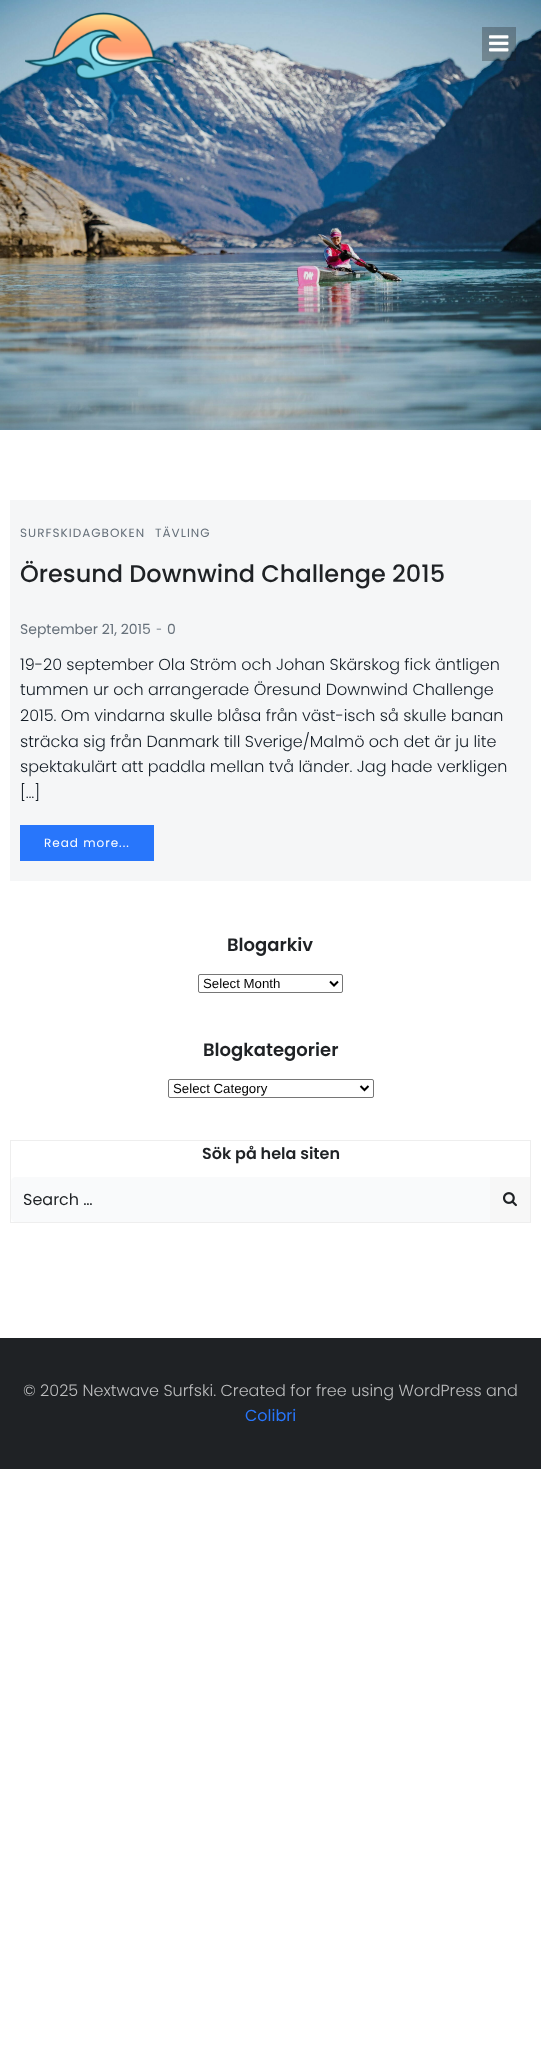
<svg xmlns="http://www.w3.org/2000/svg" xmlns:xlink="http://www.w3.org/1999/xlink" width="541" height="2050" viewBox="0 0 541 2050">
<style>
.cls-1{font:12px Poppins;letter-spacing:1px;fill:#66707a}
.cls-2{font:500 24px Poppins;fill:#1f2225}
.cls-3{font:14px Poppins;fill:#66707a}
.cls-4{font:300 18px Open Sans;letter-spacing:2px;fill:#66707a}
.cls-5{font:300 16px Poppins;fill:#131c25}
.cls-6{font:12px Poppins;letter-spacing:1px;fill:#ffffff}
.cls-7{font:600 18px Poppins;fill:#1f2225}
.cls-8{font:13.25px Liberation Sans;fill:#000000}
.cls-9{font:600 16px Poppins;fill:#1f2225}
.cls-10{font:16px Poppins;fill:#1f2225}
.cls-11{font:300 16px Poppins;fill:#bcbdbe}
.cls-12{font:16px Poppins;fill:#2876fb}
</style>
<rect width="100%" height="100%" fill="#ffffff"/>
<image xlink:href="image0.png" x="0" y="0" width="541" height="430"/>
<image xlink:href="image1.png" x="25" y="12" width="150" height="68"/>
<rect fill="#1f1f1f" fill-opacity="0.3" x="482" y="27" width="34" height="34"/>
<image xlink:href="image2.png" x="489" y="35" width="20" height="17"/>
<rect fill="#f5f6f7" x="10" y="500" width="521" height="381"/>
<rect fill="#2876fb" x="20" y="825" width="134" height="36"/>
<rect fill="none" stroke="#767676" x="198.5" y="974.5" width="144" height="18" rx="1.5"/>
<path fill="none" stroke="#000000" stroke-width="2" d="M330 981.5L334 985.5L338 981.5"/>
<rect fill="none" stroke="#767676" x="168.5" y="1079.5" width="205" height="18" rx="1.5"/>
<path fill="none" stroke="#000000" stroke-width="2" d="M360.5 1086L364.5 1090L368.5 1086"/>
<rect fill="none" stroke="#eeeeee" x="10.5" y="1140.5" width="520" height="82"/>
<path fill="#f9fafb" d="M16 1177H490V1222H16C13 1222 11 1220 11 1217V1182C11 1179 13 1177 16 1177Z"/>
<rect fill="#f7f7f7" x="490" y="1177" width="40" height="45"/>
<image xlink:href="image3.png" x="503" y="1192" width="14" height="15"/>
<rect fill="#1f2225" x="0" y="1338" width="541" height="131"/>
<text class="cls-1" x="20" y="537">SURFSKIDAGBOKEN</text>
<text class="cls-1" x="155" y="537">TÄVLING</text>
<text class="cls-2" x="20" y="582">Öresund Downwind Challenge 2015</text>
<text class="cls-3" x="20" y="634">September 21, 2015</text>
<text class="cls-4" x="156" y="634">-</text>
<text class="cls-3" x="167" y="634">0</text>
<text class="cls-5"><tspan x="20" y="670">19-20 september Ola Ström och Johan Skärskog fick äntligen</tspan><tspan x="20" y="695">tummen ur och arrangerade Öresund Downwind Challenge</tspan><tspan x="20" y="721">2015. Om vindarna skulle blåsa från väst-isch så skulle banan</tspan><tspan x="20" y="747">sträcka sig från Danmark till Sverige/Malmö och det är ju lite</tspan><tspan x="20" y="772">spektakulärt att paddla mellan två länder. Jag hade verkligen</tspan><tspan x="20" y="798">[…]</tspan></text>
<text class="cls-6" x="44" y="847">Read more...</text>
<text class="cls-7" x="227" y="951">Blogarkiv</text>
<text class="cls-8" x="203" y="988">Select Month</text>
<text class="cls-7" x="203" y="1056">Blogkategorier</text>
<text class="cls-8" x="173" y="1093">Select Category</text>
<text class="cls-9" x="202" y="1159">Sök på hela siten</text>
<text class="cls-10" x="23" y="1205">Search …</text>
<text class="cls-11" x="23" y="1396">© 2025 Nextwave Surfski. Created for free using WordPress and</text>
<text class="cls-12" x="245" y="1421">Colibri</text>
</svg>
